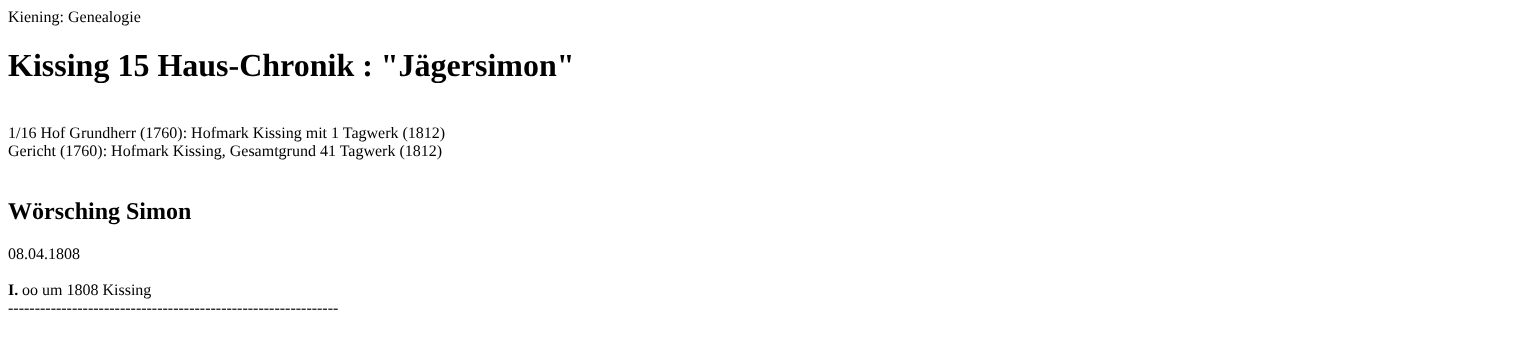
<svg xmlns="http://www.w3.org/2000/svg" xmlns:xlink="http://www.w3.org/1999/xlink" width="1531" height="347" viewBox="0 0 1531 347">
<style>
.cls-1{font:16px Liberation Serif;fill:#000000}
.cls-2{font:bold 32px Liberation Serif;fill:#000000}
.cls-3{font:bold 24px Liberation Serif;fill:#000000}
.cls-4{font:bold 16px Liberation Serif;fill:#000000}
</style>
<rect width="100%" height="100%" fill="#ffffff"/>
<text class="cls-1" x="8" y="22">Kiening: Genealogie</text>
<text class="cls-2" x="8" y="76">Kissing 15 Haus-Chronik : "Jägersimon"</text>
<text class="cls-1"><tspan x="8" y="138">1/16 Hof Grundherr (1760): Hofmark Kissing mit 1 Tagwerk (1812)</tspan><tspan x="8" y="156">Gericht (1760): Hofmark Kissing, Gesamtgrund 41 Tagwerk (1812)</tspan></text>
<text class="cls-3" x="8" y="219">Wörsching Simon</text>
<text class="cls-1" x="8" y="259">08.04.1808</text>
<text class="cls-4" x="8" y="295">I.</text>
<text class="cls-1" x="22" y="295">oo um 1808 Kissing</text>
<text class="cls-1" x="8" y="313">--------------------------------------------------------------</text>
</svg>
